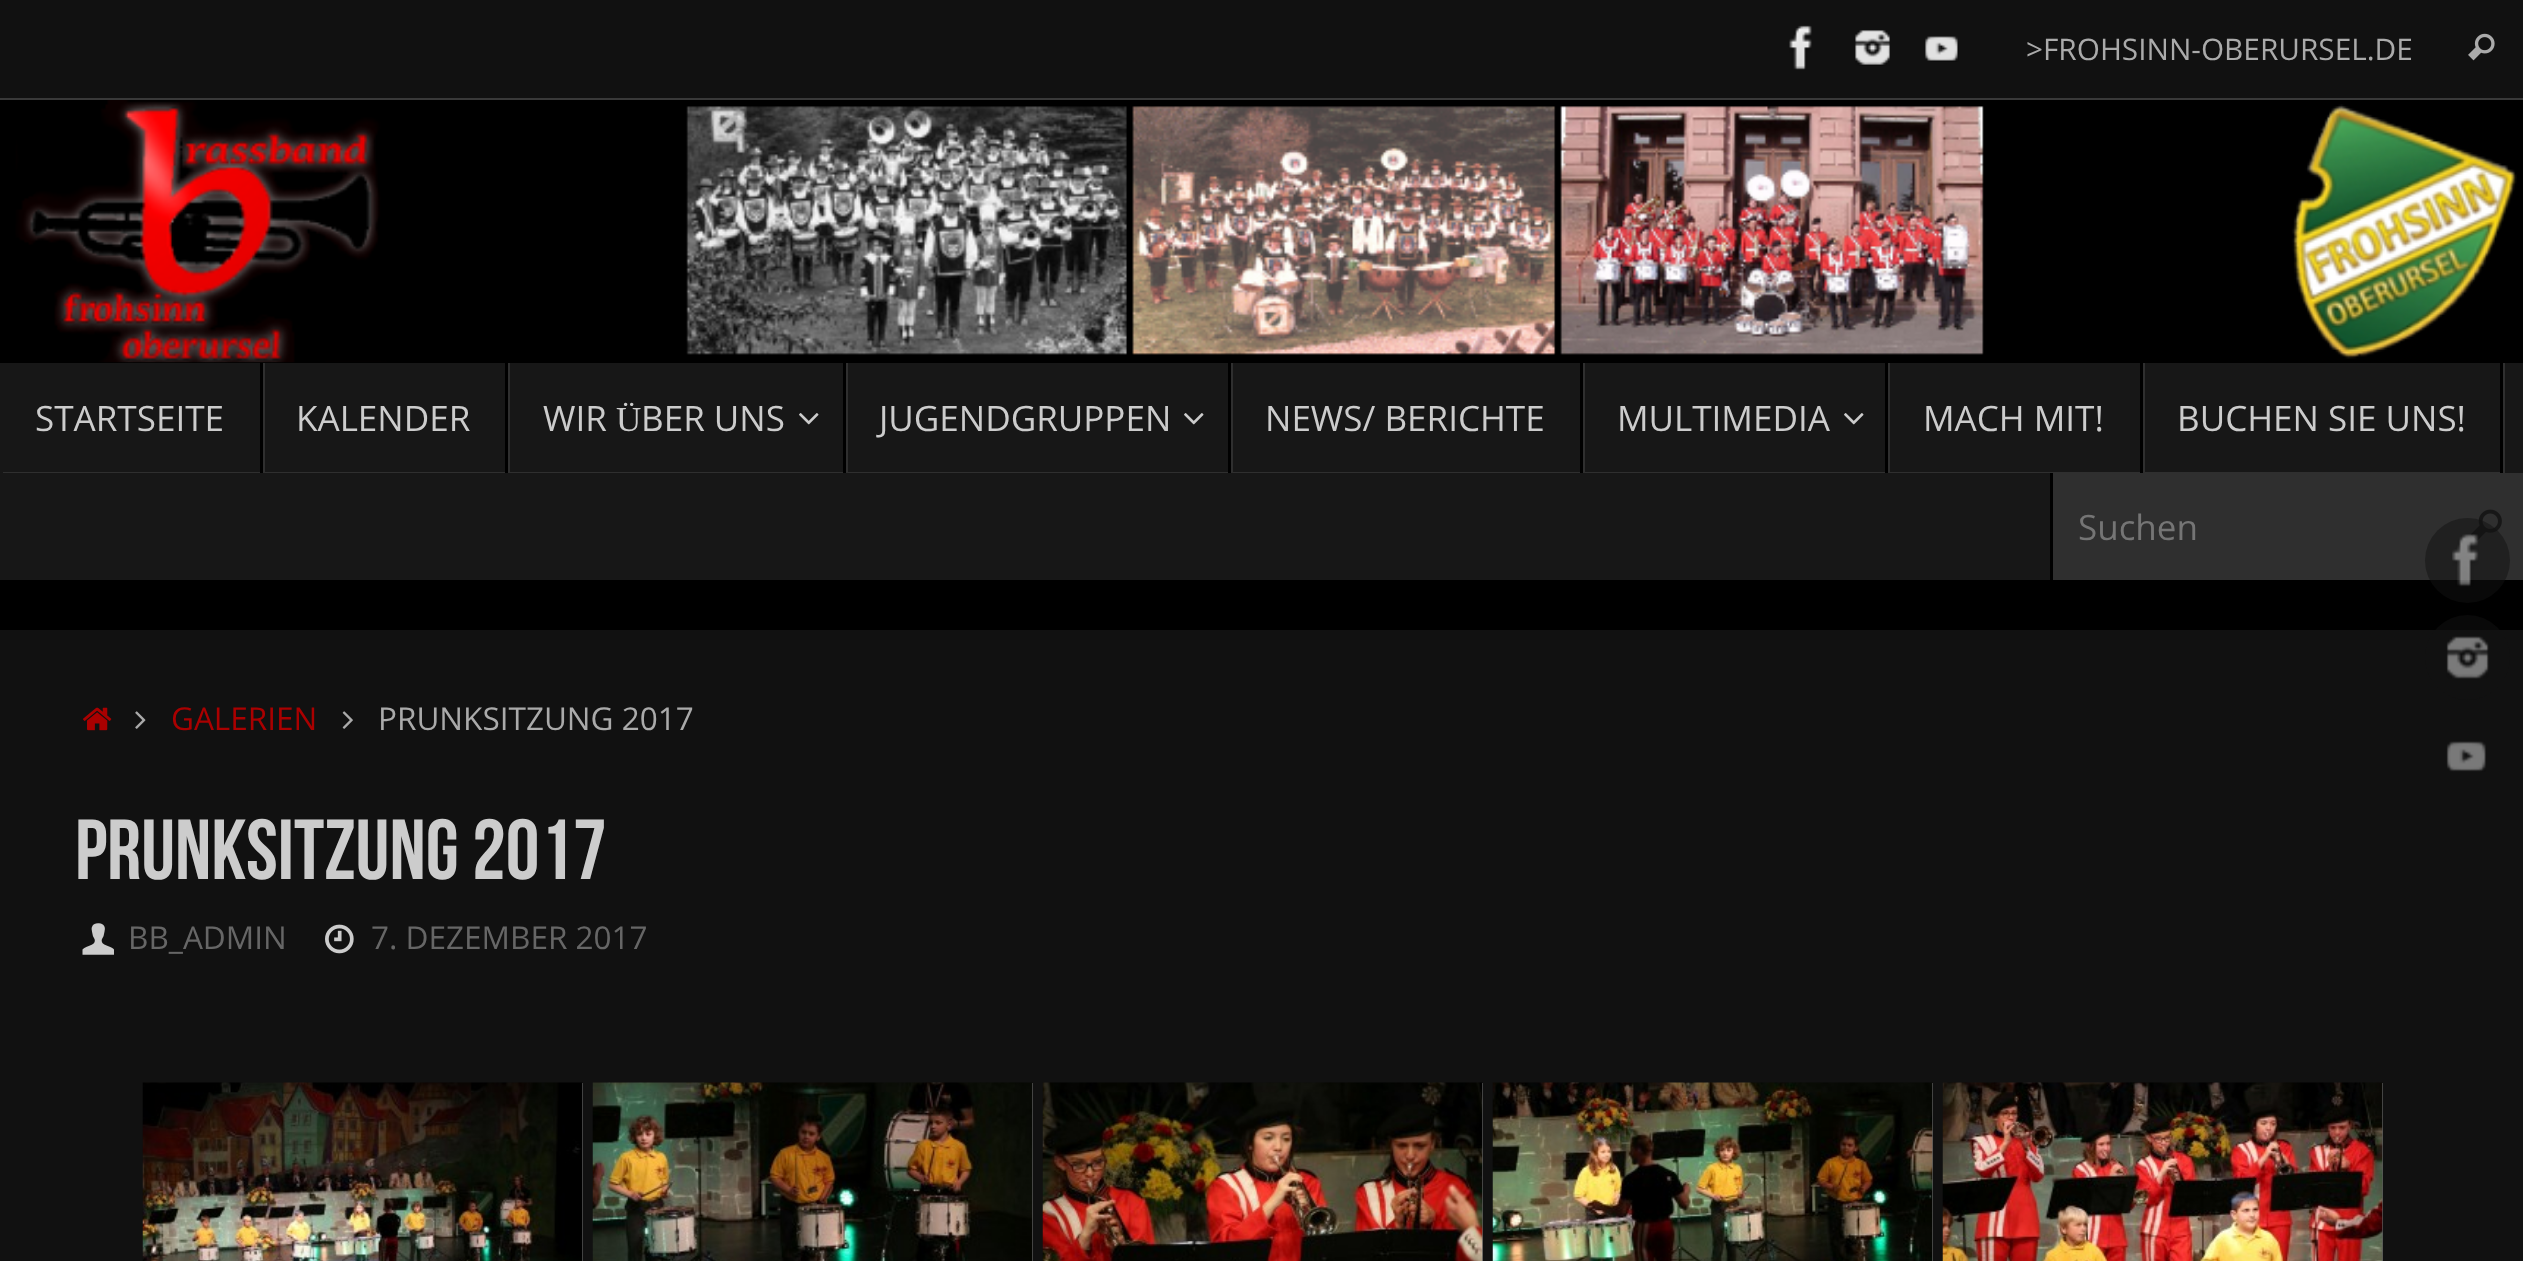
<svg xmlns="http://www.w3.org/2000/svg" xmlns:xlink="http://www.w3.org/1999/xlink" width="2523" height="1261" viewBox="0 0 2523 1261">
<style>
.cls-1{font:29.75px Open Sans;fill:#aaaaaa}
.cls-2{font:35px Open Sans;fill:#cccccc}
.cls-3{font:35px Liberation Serif;fill:#cccccc}
.cls-4{font:35px Open Sans;fill:#757575}
.cls-5{font:31.5px Open Sans;fill:#aa0000}
.cls-6{font:31.5px Open Sans;fill:#aaaaaa}
.cls-7{font:85px Bebas Neue;fill:#cccccc}
.cls-8{font:31.5px Open Sans;fill:#666666}
</style>
<rect width="100%" height="100%" fill="#000000"/>
<rect fill="#111111" x="0" y="0" width="2523" height="98"/>
<rect fill="#393939" x="0" y="98" width="2523" height="2"/>
<image xlink:href="image0.png" x="1789" y="25" width="23" height="45"/>
<image xlink:href="image1.png" x="1855" y="30" width="35" height="36"/>
<image xlink:href="image2.png" x="1925" y="36" width="34" height="26"/>
<image xlink:href="image3.png" x="2468" y="33" width="27" height="28"/>
<image xlink:href="image4.png" x="0" y="100" width="2523" height="263"/>
<rect fill="#171717" x="0" y="363" width="2523" height="217"/>
<path fill="#2f2f2f" d="M3 472V473H265V363H262V472Z"/>
<rect fill="#000000" x="260" y="363" width="3" height="110"/>
<path fill="#2f2f2f" d="M265 472V473H510V363H508V472Z"/>
<rect fill="#000000" x="505" y="363" width="3" height="110"/>
<path fill="#2f2f2f" d="M510 472V473H848V363H845V472Z"/>
<rect fill="#000000" x="843" y="363" width="3" height="110"/>
<image xlink:href="image5.png" x="799" y="413" width="20" height="12"/>
<path fill="#2f2f2f" d="M848 472V473H1233V363H1230V472Z"/>
<rect fill="#000000" x="1228" y="363" width="3" height="110"/>
<image xlink:href="image5.png" x="1184" y="413" width="20" height="12"/>
<path fill="#2f2f2f" d="M1233 472V473H1585V363H1582V472Z"/>
<rect fill="#000000" x="1580" y="363" width="3" height="110"/>
<path fill="#2f2f2f" d="M1585 472V473H1890V363H1888V472Z"/>
<rect fill="#000000" x="1885" y="363" width="3" height="110"/>
<image xlink:href="image5.png" x="1844" y="413" width="20" height="12"/>
<path fill="#2f2f2f" d="M1890 472V473H2145V363H2142V472Z"/>
<rect fill="#000000" x="2140" y="363" width="3" height="110"/>
<path fill="#2f2f2f" d="M2145 472V473H2505V363H2502V472Z"/>
<rect fill="#000000" x="2500" y="363" width="3" height="110"/>
<rect fill="#2f2f2f" x="2053" y="473" width="470" height="107"/>
<rect fill="#000000" x="2050" y="473" width="3" height="107"/>
<image xlink:href="image6.png" x="2471" y="509" width="31" height="32"/>
<circle fill="#111111" fill-opacity="0.5" cx="2467.5" cy="560.5" r="42.5"/>
<image xlink:href="image7.png" x="2452" y="534" width="27" height="53"/>
<rect fill="#111111" x="0" y="630" width="2523" height="631"/>
<circle fill="#111111" fill-opacity="0.5" cx="2467.5" cy="657.5" r="42.5"/>
<image xlink:href="image8.png" x="2446" y="636" width="43" height="43"/>
<image xlink:href="image9.png" x="2446" y="741" width="40" height="31"/>
<image xlink:href="image10.png" x="83" y="707" width="29" height="24"/>
<image xlink:href="image11.png" x="135" y="711" width="11" height="18"/>
<image xlink:href="image12.png" x="342" y="711" width="11" height="18"/>
<image xlink:href="image13.png" x="82" y="923" width="32" height="32"/>
<image xlink:href="image14.png" x="325" y="924" width="29" height="30"/>
<rect fill="#585858" x="582" y="1083" width="1" height="178"/>
<image xlink:href="image15.png" x="142" y="1082" width="441" height="179"/>
<rect fill="#585858" x="1032" y="1083" width="1" height="178"/>
<image xlink:href="image16.png" x="592" y="1082" width="441" height="179"/>
<rect fill="#585858" x="1482" y="1083" width="1" height="178"/>
<image xlink:href="image17.png" x="1042" y="1082" width="441" height="179"/>
<rect fill="#585858" x="1932" y="1083" width="1" height="178"/>
<image xlink:href="image18.png" x="1492" y="1082" width="441" height="179"/>
<rect fill="#585858" x="2382" y="1083" width="1" height="178"/>
<image xlink:href="image19.png" x="1942" y="1082" width="441" height="179"/>
<text class="cls-1" x="2026" y="60">&gt;FROHSINN-OBERURSEL.DE</text>
<text class="cls-2" x="35" y="431">STARTSEITE</text>
<text class="cls-2" x="296" y="431">KALENDER</text>
<text class="cls-2" x="543" y="431">WIR</text>
<text class="cls-3" x="616" y="431">Ü</text>
<text class="cls-2" x="641" y="431">BER UNS</text>
<text class="cls-2" x="879" y="431">JUGENDGRUPPEN</text>
<text class="cls-2" x="1265" y="431">NEWS/ BERICHTE</text>
<text class="cls-2" x="1617" y="431">MULTIMEDIA</text>
<text class="cls-2" x="1923" y="431">MACH MIT!</text>
<text class="cls-2" x="2177" y="431">BUCHEN SIE UNS!</text>
<text class="cls-4" x="2078" y="540">Suchen</text>
<text class="cls-5" x="171" y="730">GALERIEN</text>
<text class="cls-6" x="378" y="730">PRUNKSITZUNG 2017</text>
<text class="cls-7" x="75" y="879">PRUNKSITZUNG 2017</text>
<text class="cls-8" x="128" y="949">BB_ADMIN</text>
<text class="cls-8" x="371" y="949">7. DEZEMBER 2017</text>
</svg>
